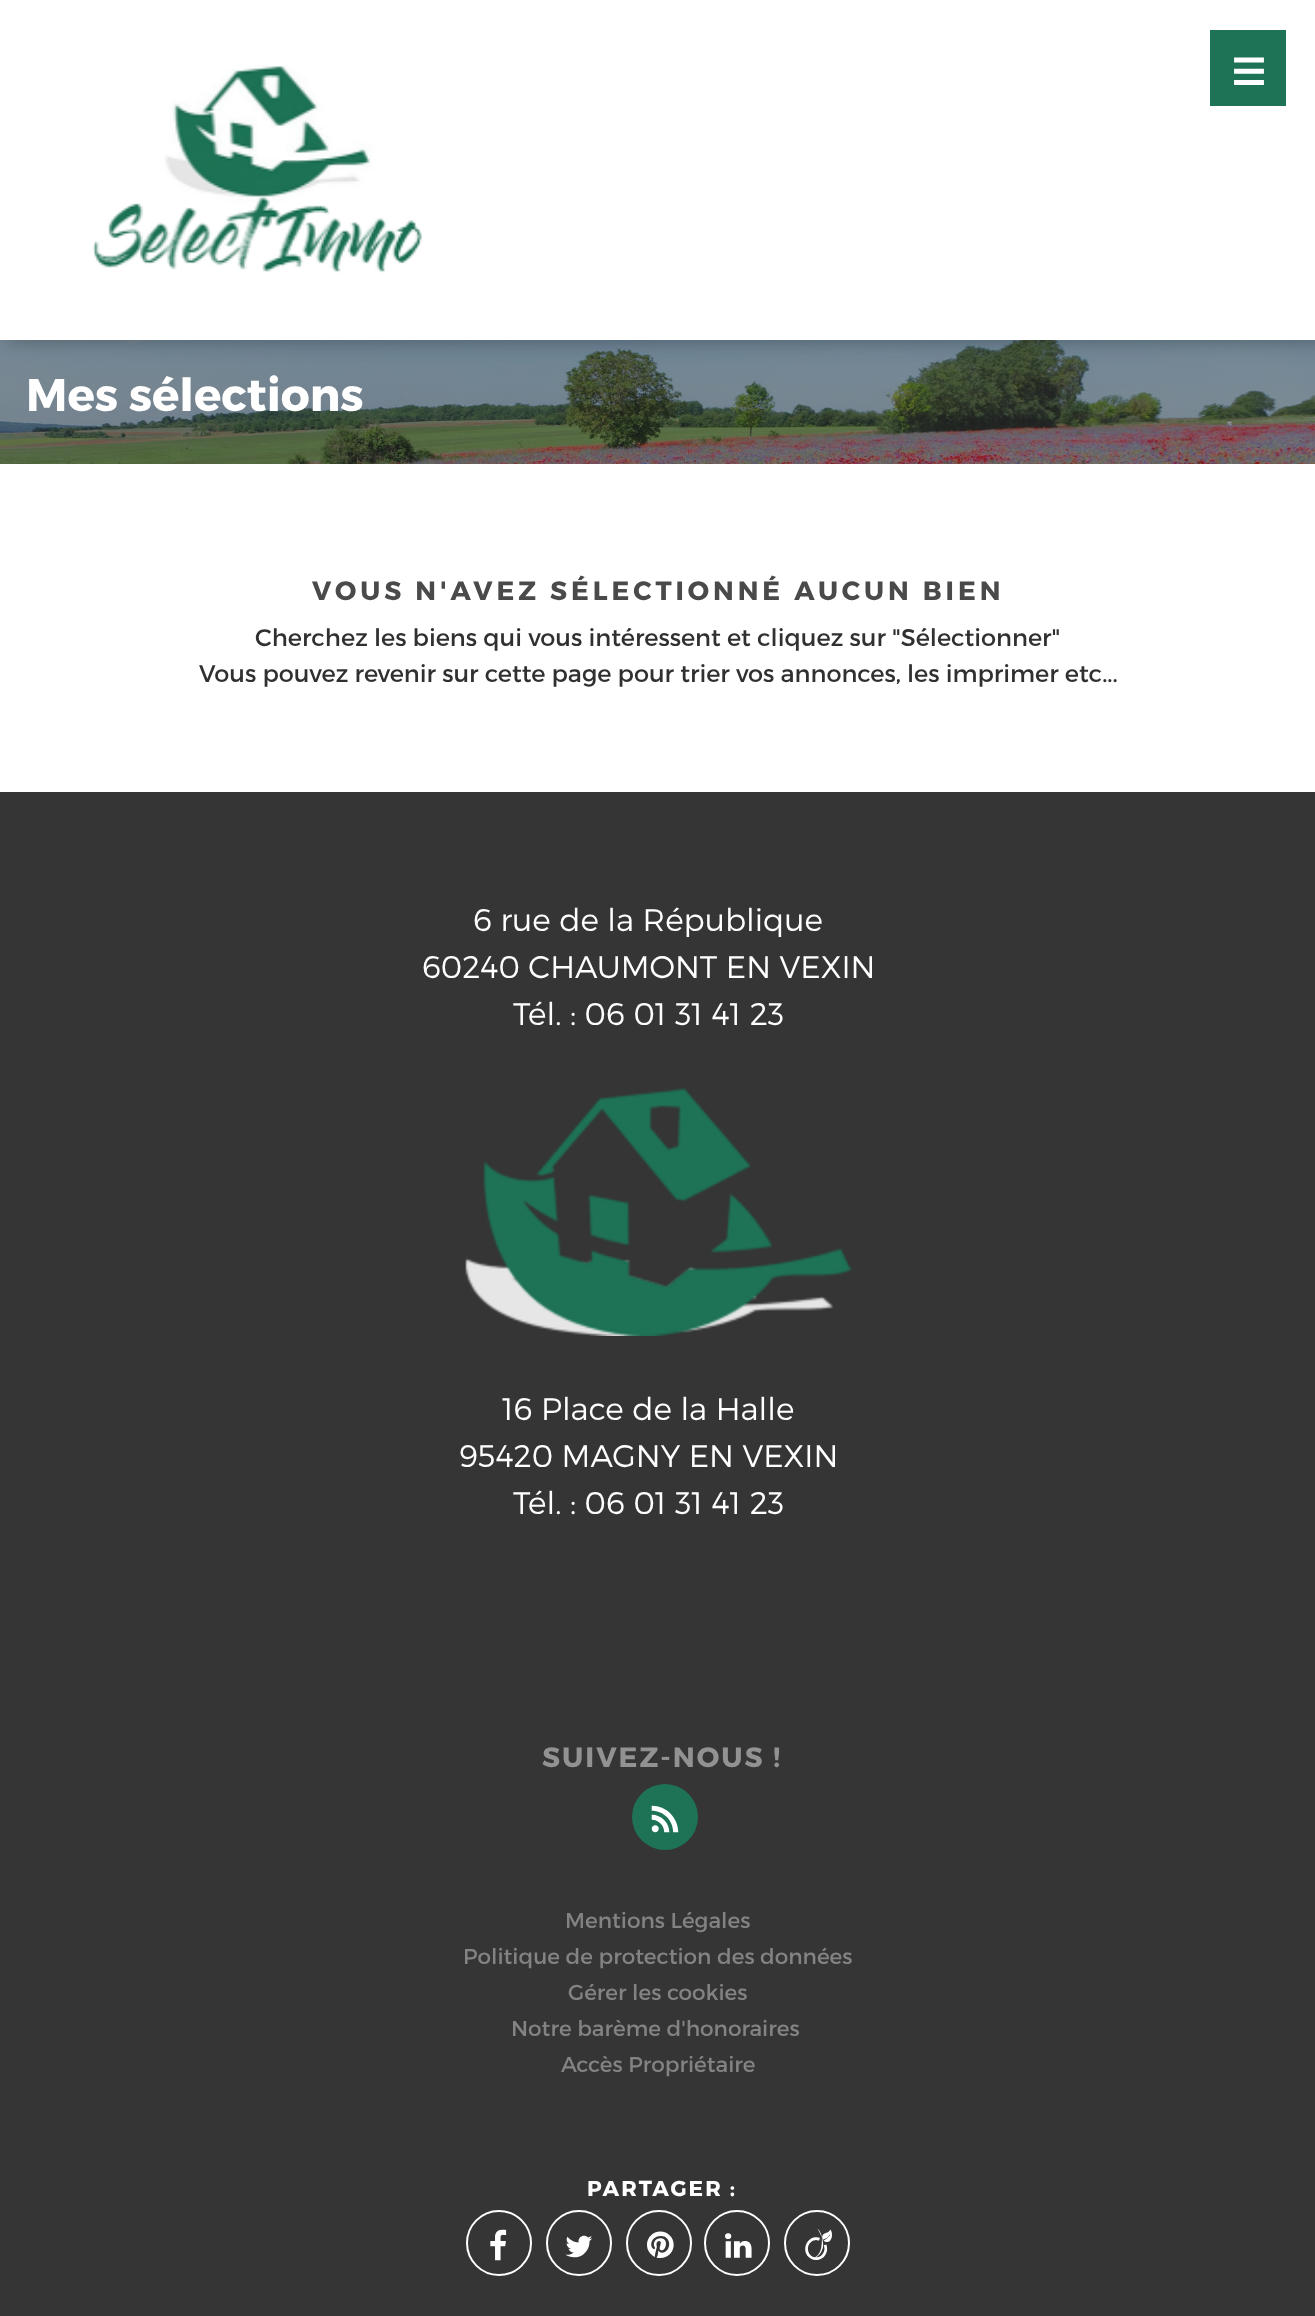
<svg xmlns="http://www.w3.org/2000/svg" xmlns:xlink="http://www.w3.org/1999/xlink" width="1315" height="2316" viewBox="0 0 1315 2316">
<style>
.cls-1{font:bold 45.5px Montserrat;fill:#ffffff}
.cls-2{font:bold 26.4px Montserrat;letter-spacing:3.95px;fill:#4a4a4a}
.cls-3{font:24px Montserrat;fill:#303030}
.cls-4{font:300 31.25px Montserrat;fill:#ffffff}
.cls-5{font:bold 28px Montserrat;letter-spacing:2px;fill:#929292}
.cls-6{font:21.6px Montserrat;fill:#838383}
.cls-7{font:bold 21.6px Montserrat;letter-spacing:2px;fill:#ffffff}
</style>
<rect width="100%" height="100%" fill="#ffffff"/>
<image xlink:href="image2.png" x="0" y="340" width="1315" height="124"/>
<rect fill="#000000" fill-opacity="0.31" filter="blur(10px)" x="8" y="0" width="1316" height="340"/>
<rect fill="#ffffff" x="0" y="0" width="1315" height="340"/>
<image xlink:href="image0.png" x="92" y="65" width="330" height="208"/>
<rect fill="#1e7357" x="1210" y="30" width="76" height="76"/>
<image xlink:href="image1.png" x="1234" y="57" width="30" height="28"/>
<rect fill="#353535" x="0" y="792" width="1315" height="1524"/>
<image xlink:href="image3.png" x="465" y="1087" width="387" height="249"/>
<circle fill="#1e7357" cx="665" cy="1817" r="33"/>
<image xlink:href="image4.png" x="651" y="1805" width="28" height="28"/>
<circle fill="none" stroke="#ffffff" stroke-width="2" cx="499" cy="2243" r="32"/>
<image xlink:href="image5.png" x="490" y="2229" width="17" height="32"/>
<circle fill="none" stroke="#ffffff" stroke-width="2" cx="579" cy="2243" r="32"/>
<image xlink:href="image6.png" x="565" y="2235" width="27" height="23"/>
<circle fill="none" stroke="#ffffff" stroke-width="2" cx="659" cy="2243" r="32"/>
<image xlink:href="image7.png" x="647" y="2231" width="27" height="27"/>
<circle fill="none" stroke="#ffffff" stroke-width="2" cx="737" cy="2243" r="32"/>
<image xlink:href="image8.png" x="725" y="2233" width="27" height="25"/>
<circle fill="none" stroke="#ffffff" stroke-width="2" cx="817" cy="2243" r="32"/>
<image xlink:href="image9.png" x="805" y="2229" width="27" height="31"/>
<text class="cls-1" x="26" y="411">Mes sélections</text>
<text class="cls-2" x="312" y="600">VOUS N'AVEZ SÉLECTIONNÉ AUCUN BIEN</text>
<text class="cls-3" x="255" y="646">Cherchez les biens qui vous intéressent et cliquez sur "Sélectionner"</text>
<text class="cls-3" x="199" y="682">Vous pouvez revenir sur cette page pour trier vos annonces, les imprimer etc...</text>
<text class="cls-4" x="473" y="931">6 rue de la République</text>
<text class="cls-4" x="422" y="978">60240 CHAUMONT EN VEXIN</text>
<text class="cls-4" x="513" y="1025">Tél. : 06 01 31 41 23</text>
<text class="cls-4" x="502" y="1420">16 Place de la Halle</text>
<text class="cls-4" x="459" y="1467">95420 MAGNY EN VEXIN</text>
<text class="cls-4" x="513" y="1514">Tél. : 06 01 31 41 23</text>
<text class="cls-5" x="542" y="1767">SUIVEZ-NOUS !</text>
<text class="cls-6" x="565" y="1928">Mentions Légales</text>
<text class="cls-6" x="463" y="1964">Politique de protection des données</text>
<text class="cls-6" x="568" y="2000">Gérer les cookies</text>
<text class="cls-6" x="511" y="2036">Notre barème d'honoraires</text>
<text class="cls-6" x="561" y="2072">Accès Propriétaire</text>
<text class="cls-7" x="587" y="2196">PARTAGER :</text>
</svg>
